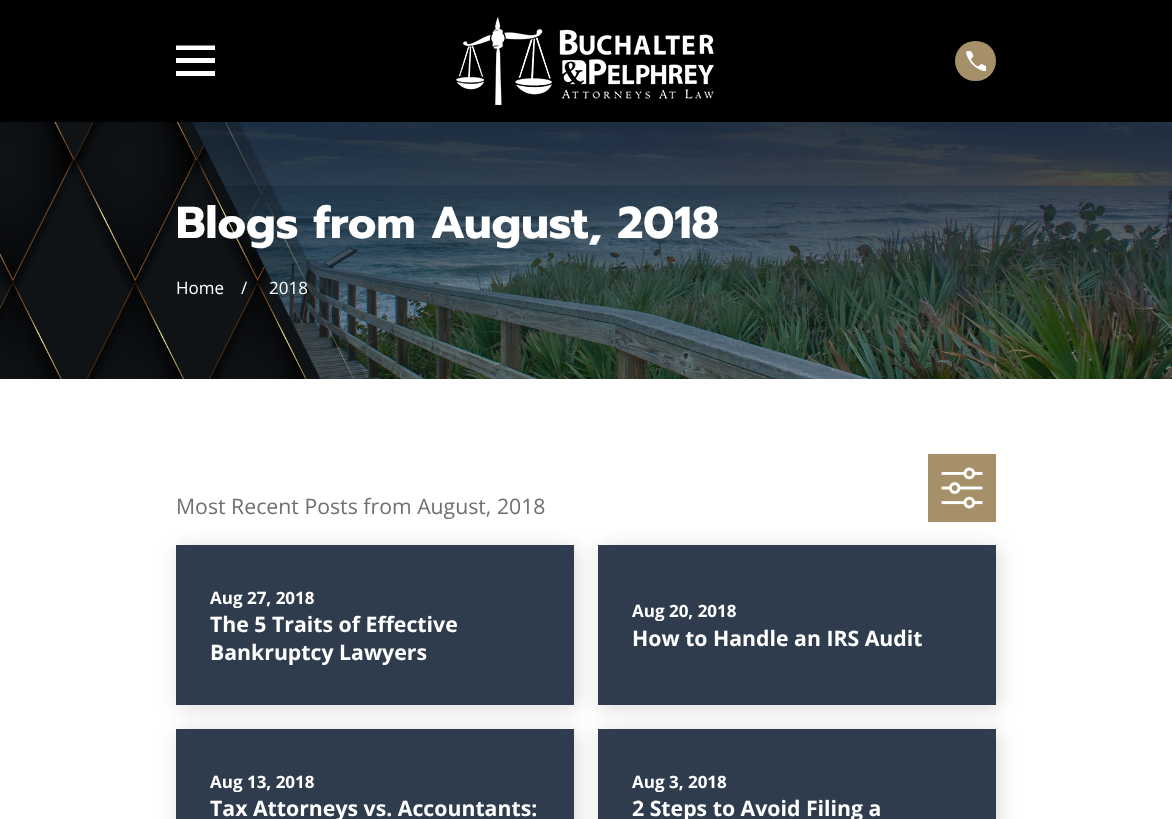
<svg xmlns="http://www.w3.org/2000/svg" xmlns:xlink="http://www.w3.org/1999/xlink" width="1172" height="819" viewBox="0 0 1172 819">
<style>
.cls-1{font:bold 44.6px Prompt;fill:#ffffff}
.cls-2{font:17px Open Sans;fill:#ffffff}
.cls-3{font:21.25px Open Sans;fill:#707070}
.cls-4{font:bold 17px Open Sans;fill:#ffffff}
.cls-5{font:bold 21.25px Open Sans;fill:#ffffff}
</style>
<rect width="100%" height="100%" fill="#ffffff"/>
<rect fill="#000000" x="0" y="0" width="1172" height="122"/>
<path fill="#ffffff" d="M176 45.5V50H215V45.5ZM176 58V63H215V58ZM176 71V76H215V71Z"/>
<image xlink:href="image0.png" x="456" y="17" width="258" height="88"/>
<rect fill="#a6906a" x="955" y="41" width="41" height="40" rx="20"/>
<image xlink:href="image1.png" x="966" y="51" width="20" height="20"/>
<image xlink:href="image2.png" x="0" y="122" width="1172" height="257"/>
<rect fill="#a6906a" x="928" y="454" width="68" height="68"/>
<image xlink:href="image3.png" x="941" y="467" width="42" height="42"/>
<rect fill="#000000" fill-opacity="0.15" filter="blur(10px)" x="179" y="548" width="398" height="160"/>
<rect fill="#2f3c4d" x="176" y="545" width="398" height="160"/>
<rect fill="#000000" fill-opacity="0.15" filter="blur(10px)" x="601" y="548" width="398" height="160"/>
<rect fill="#2f3c4d" x="598" y="545" width="398" height="160"/>
<rect fill="#000000" fill-opacity="0.15" filter="blur(10px)" x="179" y="732" width="398" height="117"/>
<rect fill="#2f3c4d" x="176" y="729" width="398" height="90"/>
<rect fill="#000000" fill-opacity="0.15" filter="blur(10px)" x="601" y="732" width="398" height="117"/>
<rect fill="#2f3c4d" x="598" y="729" width="398" height="90"/>
<text class="cls-1" x="176" y="238">Blogs from August, 2018</text>
<text class="cls-2" x="176" y="294">Home</text>
<text class="cls-2" x="241" y="294">/</text>
<text class="cls-2" x="269" y="294">2018</text>
<text class="cls-3" x="176" y="514">Most Recent Posts from August, 2018</text>
<text class="cls-4" x="210" y="604">Aug 27, 2018</text>
<text class="cls-5"><tspan x="210" y="632">The 5 Traits of Effective</tspan><tspan x="210" y="660">Bankruptcy Lawyers</tspan></text>
<text class="cls-4" x="632" y="617">Aug 20, 2018</text>
<text class="cls-5" x="632" y="646">How to Handle an IRS Audit</text>
<text class="cls-4" x="210" y="788">Aug 13, 2018</text>
<text class="cls-5" x="210" y="816">Tax Attorneys vs. Accountants:</text>
<text class="cls-4" x="632" y="788">Aug 3, 2018</text>
<text class="cls-5" x="632" y="816">2 Steps to Avoid Filing a</text>
</svg>
